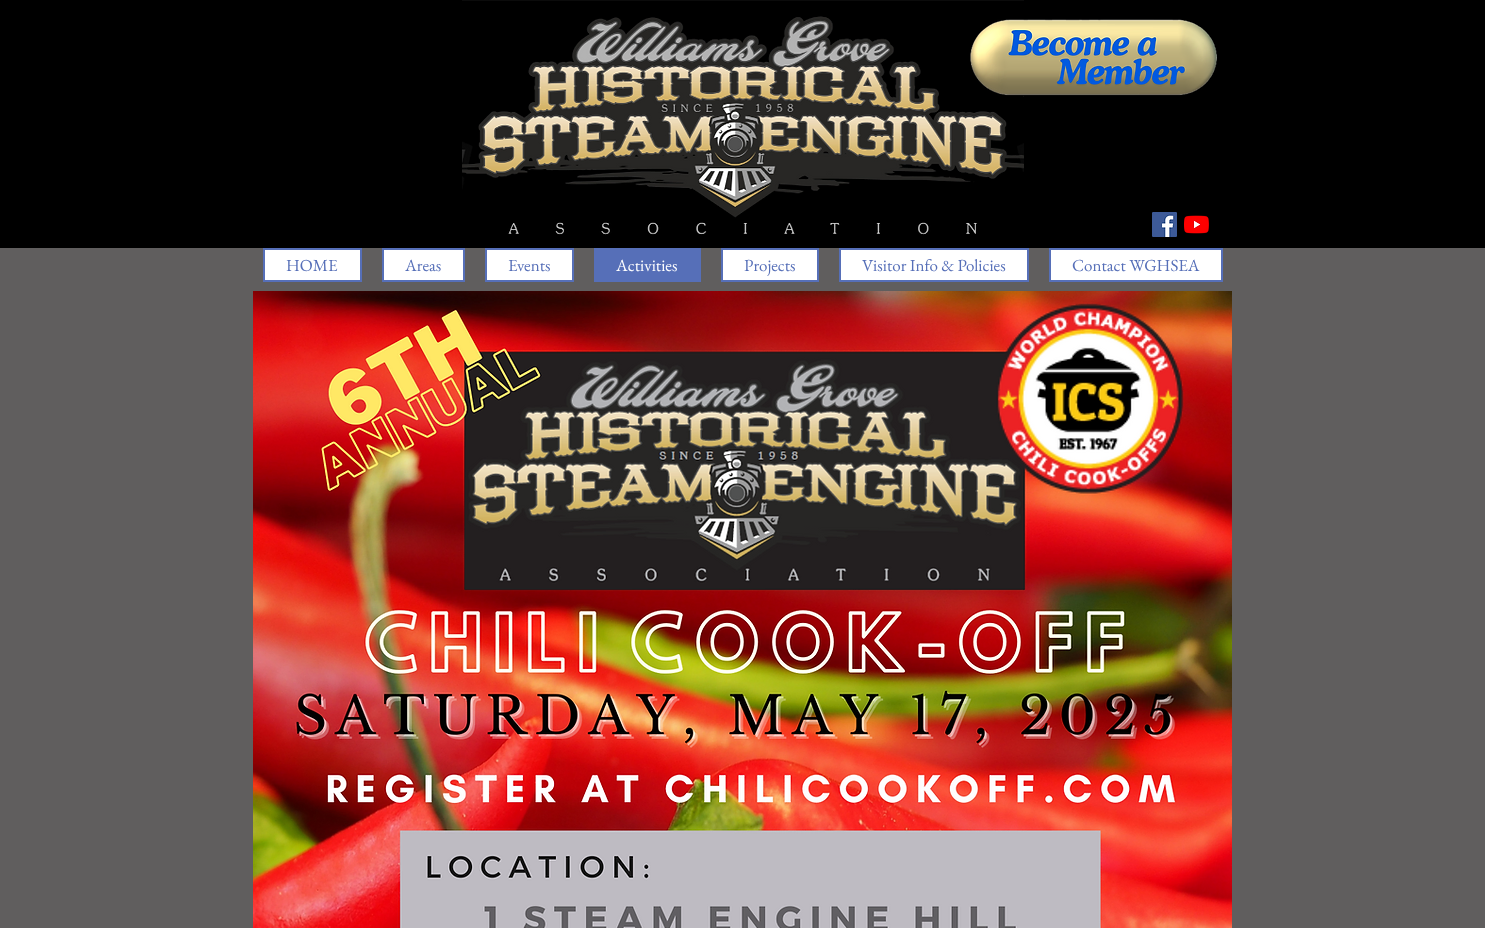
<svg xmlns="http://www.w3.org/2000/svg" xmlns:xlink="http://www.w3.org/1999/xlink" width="1485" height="928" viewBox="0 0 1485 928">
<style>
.cls-1{font:17px EB Garamond;fill:#566fb8}
.cls-2{font:17px EB Garamond;fill:#ffffff}
</style>
<rect width="100%" height="100%" fill="#605e5e"/>
<rect fill="#000000" x="0" y="0" width="1485" height="248"/>
<image xlink:href="image0.png" x="462" y="0" width="562" height="235"/>
<image xlink:href="image1.png" x="970" y="19" width="247" height="77"/>
<image xlink:href="image2.png" x="1152" y="212" width="25" height="25"/>
<image xlink:href="image3.png" x="1184" y="215" width="25" height="19"/>
<rect fill="#ffffff" stroke="#566fb8" stroke-width="2" x="264" y="249" width="97" height="32"/>
<rect fill="#ffffff" stroke="#566fb8" stroke-width="2" x="383" y="249" width="81" height="32"/>
<rect fill="#ffffff" stroke="#566fb8" stroke-width="2" x="486" y="249" width="87" height="32"/>
<rect fill="#566fb8" x="594" y="248" width="107" height="34"/>
<rect fill="#ffffff" stroke="#566fb8" stroke-width="2" x="722" y="249" width="96" height="32"/>
<rect fill="#ffffff" stroke="#566fb8" stroke-width="2" x="840" y="249" width="188" height="32"/>
<rect fill="#ffffff" stroke="#566fb8" stroke-width="2" x="1050" y="249" width="172" height="32"/>
<image xlink:href="image4.png" x="253" y="291" width="979" height="637"/>
<text class="cls-1" x="286" y="271">HOME</text>
<text class="cls-1" x="405" y="271">Areas</text>
<text class="cls-1" x="508" y="271">Events</text>
<text class="cls-2" x="616" y="271">Activities</text>
<text class="cls-1" x="744" y="271">Projects</text>
<text class="cls-1" x="862" y="271">Visitor Info &amp; Policies</text>
<text class="cls-1" x="1072" y="271">Contact WGHSEA</text>
</svg>
